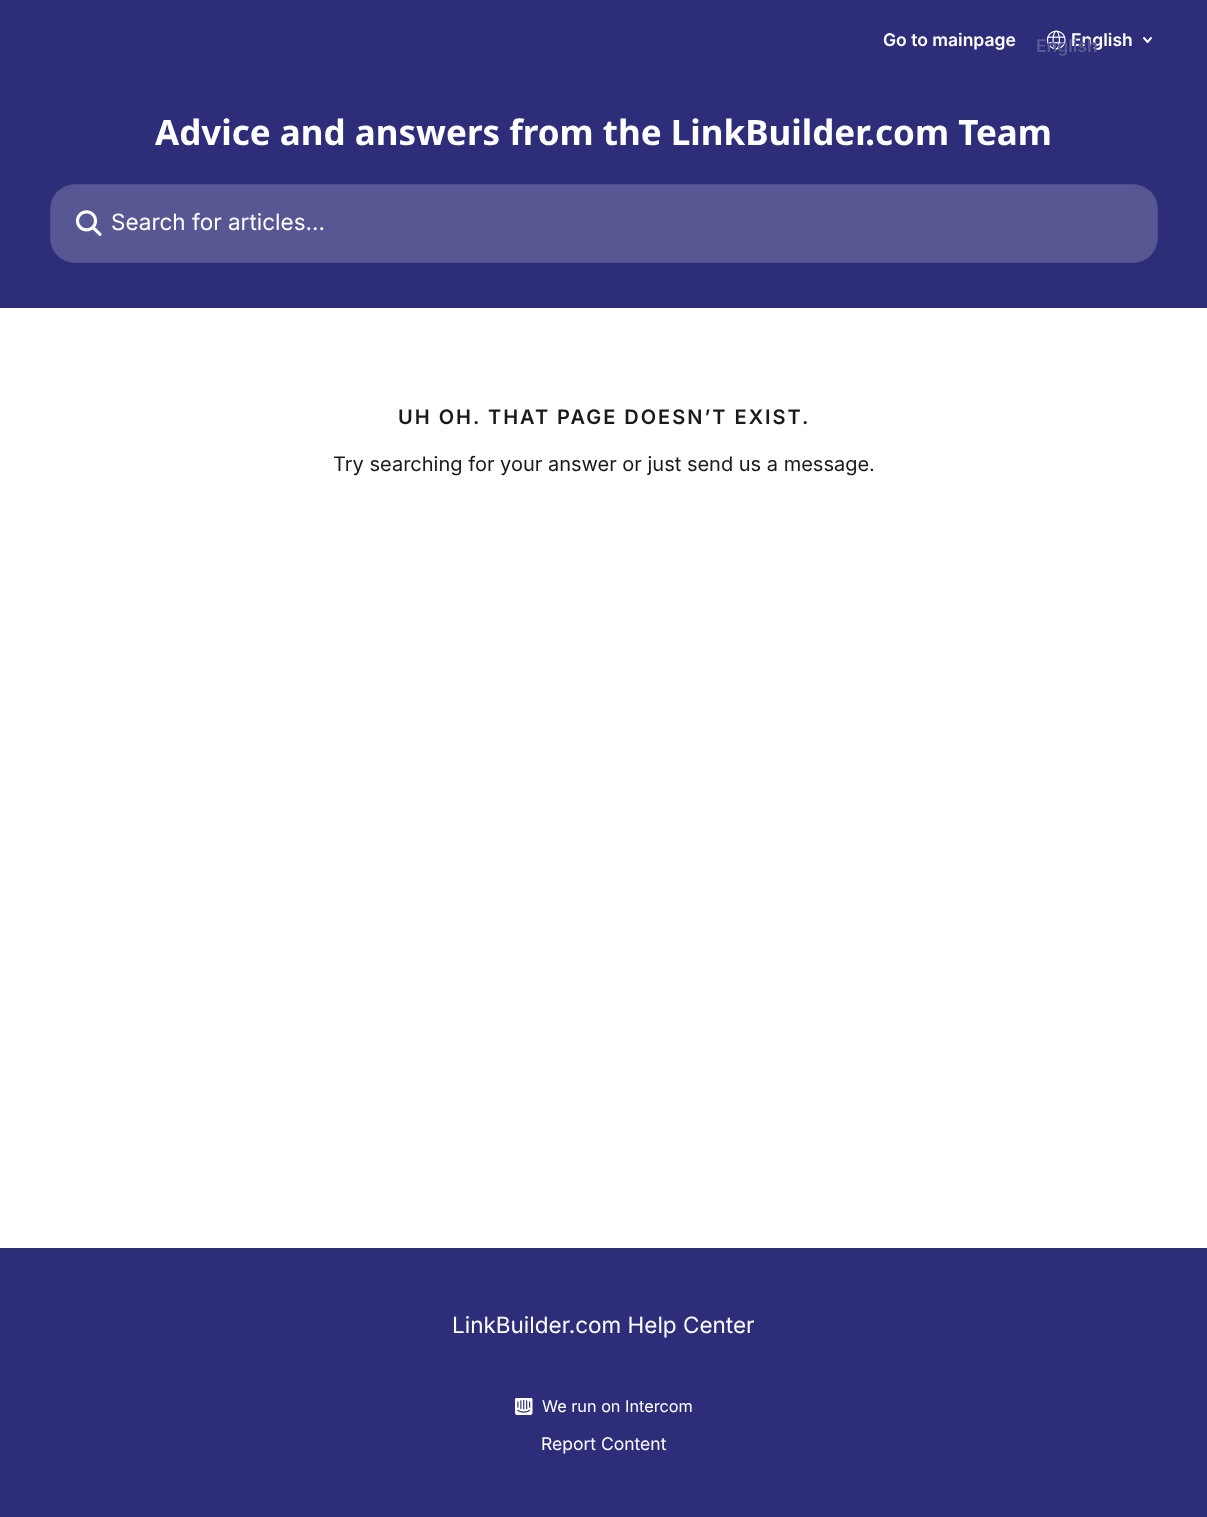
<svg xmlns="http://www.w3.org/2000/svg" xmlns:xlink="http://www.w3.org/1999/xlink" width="1207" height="1517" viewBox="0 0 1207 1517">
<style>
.cls-1{font:600 17.5px Inter;fill:#ffffff}
.cls-2{font:600 17.5px Inter;fill:#595996}
.cls-3{font:bold 35px Noto Sans;fill:#ffffff}
.cls-4{font:22.5px Inter;fill:#ffffff}
.cls-5{font:600 20px Inter;letter-spacing:2px;fill:#1a1a1a}
.cls-6{font:20px Inter;fill:#1a1a1a}
.cls-7{font:16.25px Inter;fill:#ffffff}
.cls-8{font:17.5px Inter;fill:#ffffff}
</style>
<rect width="100%" height="100%" fill="#ffffff"/>
<rect fill="#2d2d7a" x="0" y="0" width="1207" height="308"/>
<image xlink:href="image0.png" x="1046" y="30" width="20" height="20"/>
<path fill="none" stroke="#ffffff" stroke-width="1.9" stroke-linecap="round" stroke-linejoin="round" d="M1144 38L1147.5 42L1151 38"/>
<rect fill="#ffffff" fill-opacity="0.2" x="50" y="184" width="1108" height="79" rx="25"/>
<rect fill="none" stroke="#000000" stroke-opacity="0.08" x="50.5" y="184.5" width="1107" height="78" rx="24.5"/>
<image xlink:href="image1.png" x="75" y="210" width="27" height="26"/>
<rect fill="#2d2d7a" x="0" y="1248" width="1207" height="269"/>
<image xlink:href="image2.png" x="515" y="1398" width="18" height="17"/>
<text class="cls-1" x="883" y="46">Go to mainpage</text>
<text class="cls-1" x="1071" y="46">English</text>
<text class="cls-2" x="1036" y="52">English</text>
<text class="cls-3" x="155" y="145">Advice and answers from the LinkBuilder.com Team</text>
<text class="cls-4" x="111" y="230">Search for articles...</text>
<text class="cls-5" x="398" y="424">UH OH. THAT PAGE DOESN’T EXIST.</text>
<text class="cls-6" x="333" y="471">Try searching for your answer or just send us a message.</text>
<text class="cls-4" x="452" y="1333">LinkBuilder.com Help Center</text>
<text class="cls-7" x="542" y="1412">We run on Intercom</text>
<text class="cls-8" x="541" y="1450">Report Content</text>
</svg>
